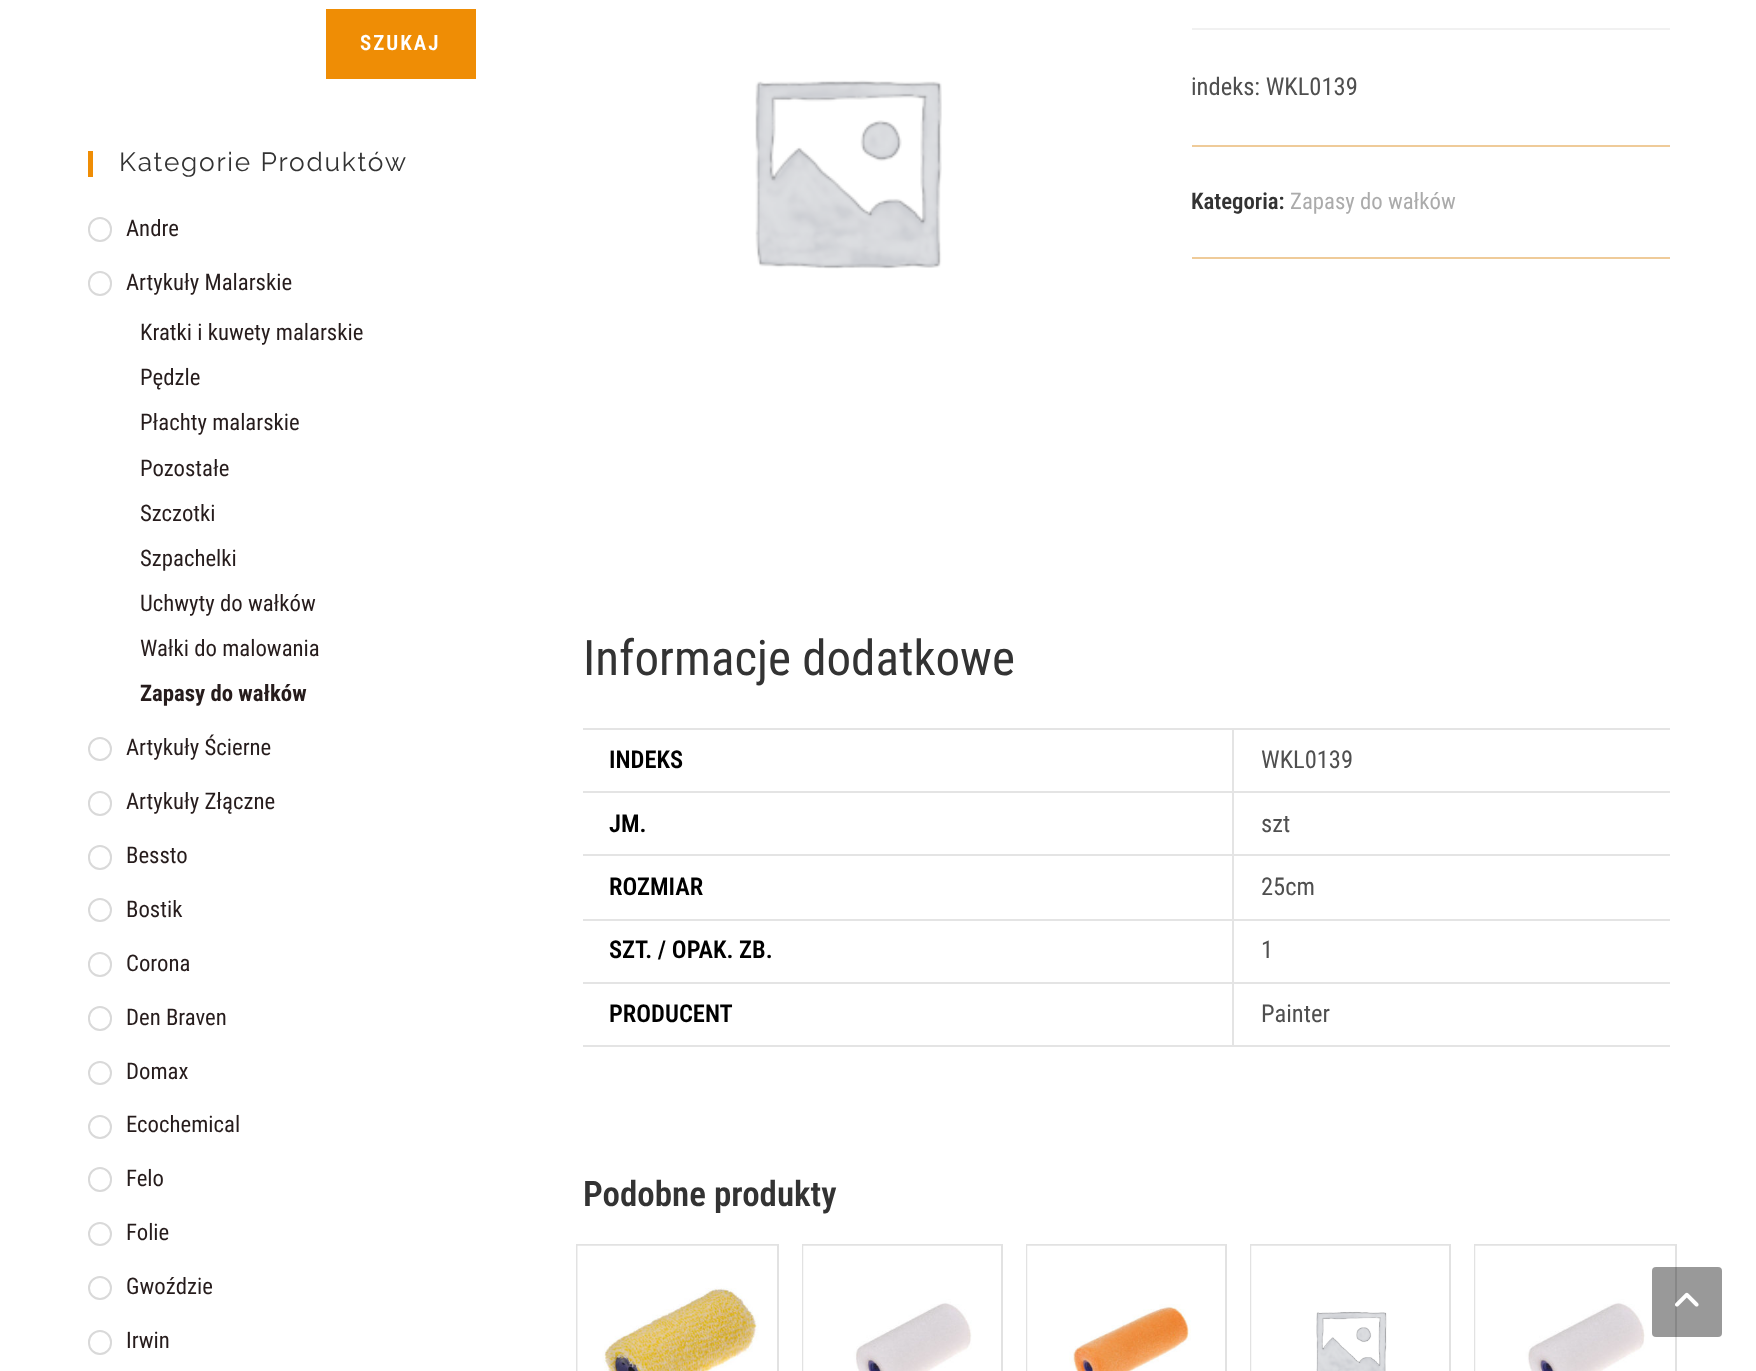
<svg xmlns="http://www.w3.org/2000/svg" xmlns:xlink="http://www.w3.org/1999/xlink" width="1756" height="1371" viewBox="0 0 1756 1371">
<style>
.cls-1{font:600 21px Roboto Condensed;letter-spacing:2px;fill:#ffffff}
.cls-2{font:26.25px Raleway;letter-spacing:1.75px;fill:#333333}
.cls-3{font:22.75px Roboto Condensed;fill:#261c1c}
.cls-4{font:bold 22.75px Roboto Condensed;fill:#261c1c}
.cls-5{font:24.5px Roboto Condensed;fill:#4f4f4f}
.cls-6{font:600 22.75px Roboto Condensed;fill:#333333}
.cls-7{font:22.75px Roboto Condensed;fill:#ababab}
.cls-8{font:49px Roboto Condensed;fill:#333333}
.cls-9{font:600 24.5px Roboto Condensed;fill:#000000}
.cls-10{font:600 35px Roboto Condensed;fill:#333333}
</style>
<rect width="100%" height="100%" fill="#ffffff"/>
<rect fill="#ef8d05" x="326" y="9" width="150" height="70"/>
<rect fill="#ef8d05" x="88" y="151" width="5" height="26"/>
<rect fill="none" stroke="#d9d9d9" stroke-width="2" x="89" y="218" width="22" height="23" rx="11"/>
<rect fill="none" stroke="#d9d9d9" stroke-width="2" x="89" y="272" width="22" height="23" rx="11"/>
<circle fill="none" stroke="#d9d9d9" stroke-width="2" cx="100" cy="749" r="11"/>
<rect fill="none" stroke="#d9d9d9" stroke-width="2" x="89" y="792" width="22" height="23" rx="11"/>
<rect fill="none" stroke="#d9d9d9" stroke-width="2" x="89" y="846" width="22" height="23" rx="11"/>
<circle fill="none" stroke="#d9d9d9" stroke-width="2" cx="100" cy="910" r="11"/>
<rect fill="none" stroke="#d9d9d9" stroke-width="2" x="89" y="953" width="22" height="23" rx="11"/>
<rect fill="none" stroke="#d9d9d9" stroke-width="2" x="89" y="1007" width="22" height="23" rx="11"/>
<circle fill="none" stroke="#d9d9d9" stroke-width="2" cx="100" cy="1073" r="11"/>
<circle fill="none" stroke="#d9d9d9" stroke-width="2" cx="100" cy="1127" r="11"/>
<rect fill="none" stroke="#d9d9d9" stroke-width="2" x="89" y="1168" width="22" height="23" rx="11"/>
<circle fill="none" stroke="#d9d9d9" stroke-width="2" cx="100" cy="1234" r="11"/>
<circle fill="none" stroke="#d9d9d9" stroke-width="2" cx="100" cy="1288" r="11"/>
<rect fill="none" stroke="#d9d9d9" stroke-width="2" x="89" y="1331" width="22" height="23" rx="11"/>
<image xlink:href="image0.png" x="755" y="80" width="187" height="189"/>
<rect fill="#f1f1f1" x="1192" y="28" width="478" height="2"/>
<rect fill="#efcb99" x="1192" y="145" width="478" height="2"/>
<rect fill="#efcb99" x="1192" y="257" width="478" height="2"/>
<rect fill="#e4e4e4" x="583" y="728" width="1087" height="2"/>
<rect fill="#e4e4e4" x="1232" y="1045" width="438" height="2"/>
<rect fill="#e4e4e4" x="1232" y="982" width="2" height="65"/>
<rect fill="#e4e4e4" x="1232" y="982" width="438" height="2"/>
<rect fill="#e4e4e4" x="1232" y="919" width="2" height="65"/>
<rect fill="#e4e4e4" x="1232" y="919" width="438" height="2"/>
<rect fill="#e4e4e4" x="1232" y="854" width="2" height="67"/>
<rect fill="#e4e4e4" x="1232" y="854" width="438" height="2"/>
<rect fill="#e4e4e4" x="1232" y="791" width="2" height="65"/>
<rect fill="#e4e4e4" x="1232" y="791" width="438" height="2"/>
<rect fill="#e4e4e4" x="1232" y="728" width="2" height="65"/>
<rect fill="#e4e4e4" x="583" y="791" width="651" height="2"/>
<rect fill="#e4e4e4" x="583" y="854" width="651" height="2"/>
<rect fill="#e4e4e4" x="583" y="919" width="651" height="2"/>
<rect fill="#e4e4e4" x="583" y="982" width="651" height="2"/>
<rect fill="#e4e4e4" x="583" y="1045" width="651" height="2"/>
<rect fill="none" stroke="#e2e2e2" stroke-width="2" x="577" y="1245" width="201" height="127"/>
<image xlink:href="image1.png" x="577" y="1245" width="200" height="126"/>
<rect fill="none" stroke="#e2e2e2" stroke-width="2" x="803" y="1245" width="199" height="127"/>
<image xlink:href="image2.png" x="803" y="1245" width="198" height="126"/>
<rect fill="none" stroke="#e2e2e2" stroke-width="2" x="1027" y="1245" width="199" height="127"/>
<image xlink:href="image3.png" x="1027" y="1245" width="198" height="126"/>
<rect fill="none" stroke="#e2e2e2" stroke-width="2" x="1251" y="1245" width="199" height="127"/>
<image xlink:href="image4.png" x="1251" y="1245" width="198" height="126"/>
<rect fill="none" stroke="#e2e2e2" stroke-width="2" x="1475" y="1245" width="201" height="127"/>
<image xlink:href="image5.png" x="1475" y="1245" width="200" height="126"/>
<rect fill="#000000" fill-opacity="0.4" x="1652" y="1267" width="70" height="70" rx="4"/>
<image xlink:href="image6.png" x="1675" y="1292" width="24" height="15"/>
<text class="cls-1" x="360" y="50">SZUKAJ</text>
<text class="cls-2" x="119" y="171">Kategorie Produktów</text>
<text class="cls-3" x="126" y="236">Andre</text>
<text class="cls-3" x="126" y="290">Artykuły Malarskie</text>
<text class="cls-3"><tspan x="140" y="340">Kratki i kuwety malarskie</tspan><tspan x="140" y="385">Pędzle</tspan><tspan x="140" y="430">Płachty malarskie</tspan></text>
<text class="cls-3"><tspan x="140" y="476">Pozostałe</tspan><tspan x="140" y="521">Szczotki</tspan><tspan x="140" y="566">Szpachelki</tspan><tspan x="140" y="611">Uchwyty do wałków</tspan><tspan x="140" y="656">Wałki do malowania</tspan></text>
<text class="cls-4" x="140" y="701">Zapasy do wałków</text>
<text class="cls-3" x="126" y="755">Artykuły Ścierne</text>
<text class="cls-3" x="126" y="809">Artykuły Złączne</text>
<text class="cls-3" x="126" y="863">Bessto</text>
<text class="cls-3" x="126" y="917">Bostik</text>
<text class="cls-3" x="126" y="971">Corona</text>
<text class="cls-3" x="126" y="1025">Den Braven</text>
<text class="cls-3" x="126" y="1079">Domax</text>
<text class="cls-3" x="126" y="1132">Ecochemical</text>
<text class="cls-3" x="126" y="1186">Felo</text>
<text class="cls-3" x="126" y="1240">Folie</text>
<text class="cls-3" x="126" y="1294">Gwoździe</text>
<text class="cls-3" x="126" y="1348">Irwin</text>
<text class="cls-5" x="1191" y="95">indeks: WKL0139</text>
<text class="cls-6" x="1191" y="209">Kategoria:</text>
<text class="cls-7" x="1290" y="209">Zapasy do wałków</text>
<text class="cls-8" x="583" y="675">Informacje dodatkowe</text>
<text class="cls-9" x="609" y="768">INDEKS</text>
<text class="cls-5" x="1261" y="768">WKL0139</text>
<text class="cls-9" x="609" y="832">JM.</text>
<text class="cls-5" x="1261" y="832">szt</text>
<text class="cls-9" x="609" y="895">ROZMIAR</text>
<text class="cls-5" x="1261" y="895">25cm</text>
<text class="cls-9" x="609" y="958">SZT. / OPAK. ZB.</text>
<text class="cls-5" x="1261" y="958">1</text>
<text class="cls-9" x="609" y="1022">PRODUCENT</text>
<text class="cls-5" x="1261" y="1022">Painter</text>
<text class="cls-10" x="583" y="1206">Podobne produkty</text>
</svg>
